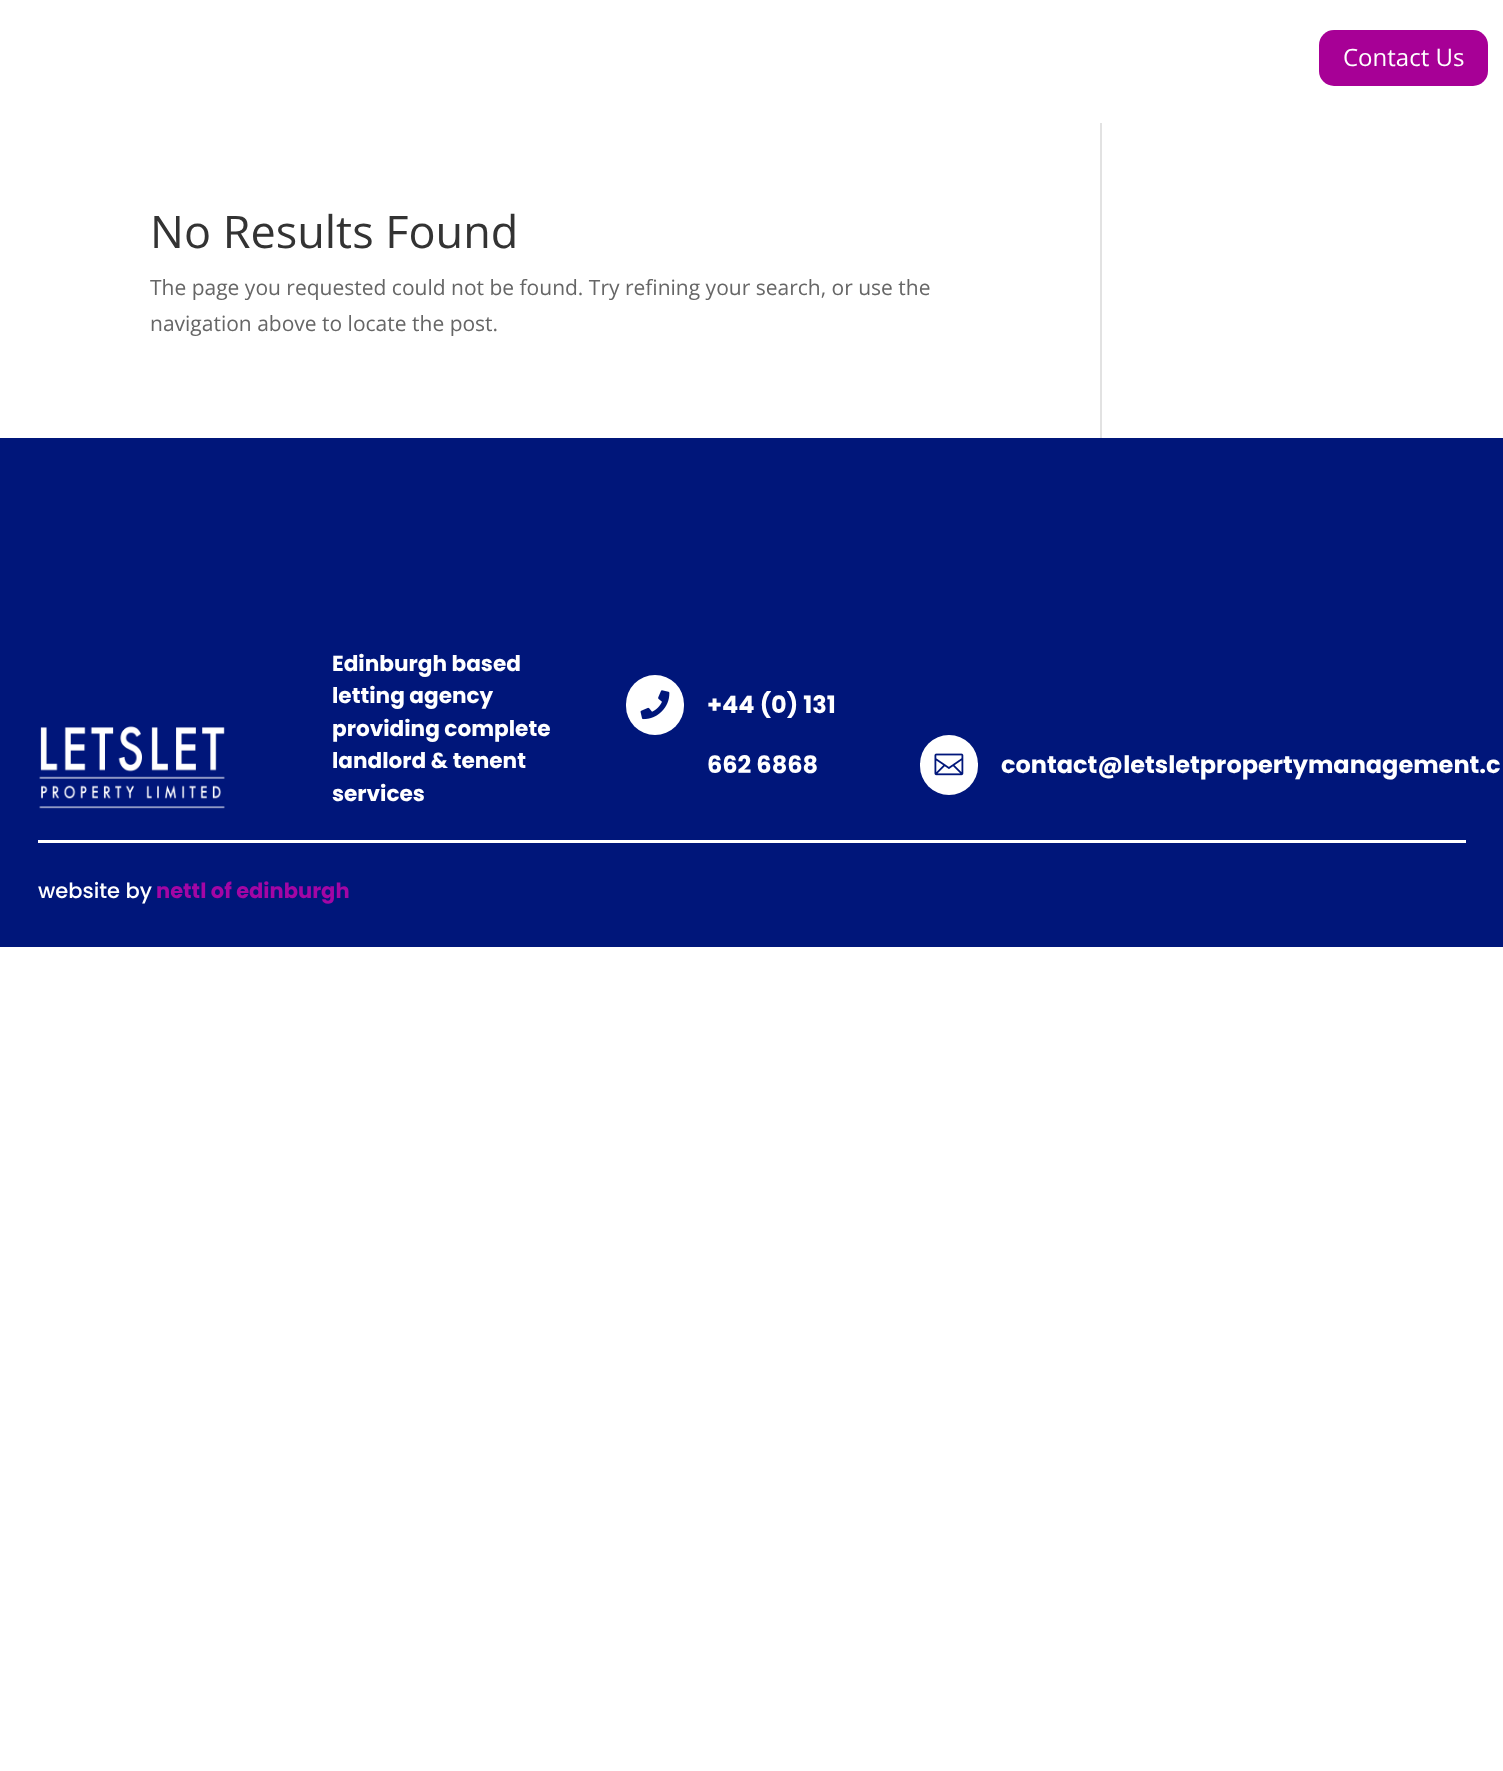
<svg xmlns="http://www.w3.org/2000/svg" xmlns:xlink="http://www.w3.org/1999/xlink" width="1503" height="1771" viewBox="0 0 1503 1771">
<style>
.cls-1{font:24px Open Sans;fill:#ffffff}
.cls-2{font:45px Open Sans;fill:#333333}
.cls-3{font:21px Open Sans;fill:#666666}
.cls-4{font:bold 21.6px Poppins;fill:#ffffff}
.cls-5{font:bold 24px Poppins;fill:#ffffff}
.cls-6{font:500 21px Poppins;fill:#ffffff}
.cls-7{font:bold 21px Poppins;fill:#a306a5}
</style>
<rect width="100%" height="100%" fill="#ffffff"/>
<rect fill="#a70096" x="1319" y="30" width="169" height="56" rx="15"/>
<rect fill="#e2e2e2" x="1100" y="123" width="2" height="315"/>
<rect fill="#00167a" x="0" y="438" width="1503" height="509"/>
<rect fill="#ffffff" x="38" y="840" width="1428" height="3"/>
<image xlink:href="image0.png" x="39" y="726" width="186" height="83"/>
<rect fill="#ffffff" x="626" y="675" width="58" height="60" rx="29"/>
<image xlink:href="image1.png" x="640" y="690" width="30" height="30"/>
<rect fill="#ffffff" x="920" y="735" width="58" height="60" rx="29"/>
<image xlink:href="image2.png" x="934" y="753" width="30" height="23"/>
<text class="cls-1" x="1343" y="66">Contact Us</text>
<text class="cls-2" x="150" y="248">No Results Found</text>
<text class="cls-3"><tspan x="150" y="295">The page you requested could not be found. Try refining your search, or use the</tspan><tspan x="150" y="331">navigation above to locate the post.</tspan></text>
<text class="cls-4"><tspan x="332" y="671">Edinburgh based</tspan><tspan x="332" y="703">letting agency</tspan><tspan x="332" y="736">providing complete</tspan><tspan x="332" y="768">landlord &amp; tenent</tspan><tspan x="332" y="801">services</tspan></text>
<text class="cls-5" x="707" y="713">+44 (0) 131</text>
<text class="cls-5" x="707" y="773">662 6868</text>
<text class="cls-5" x="1001" y="773">contact@letsletpropertymanagement.c</text>
<text class="cls-6" x="38" y="898">website by</text>
<text class="cls-7" x="156" y="898">nettl of edinburgh</text>
</svg>
